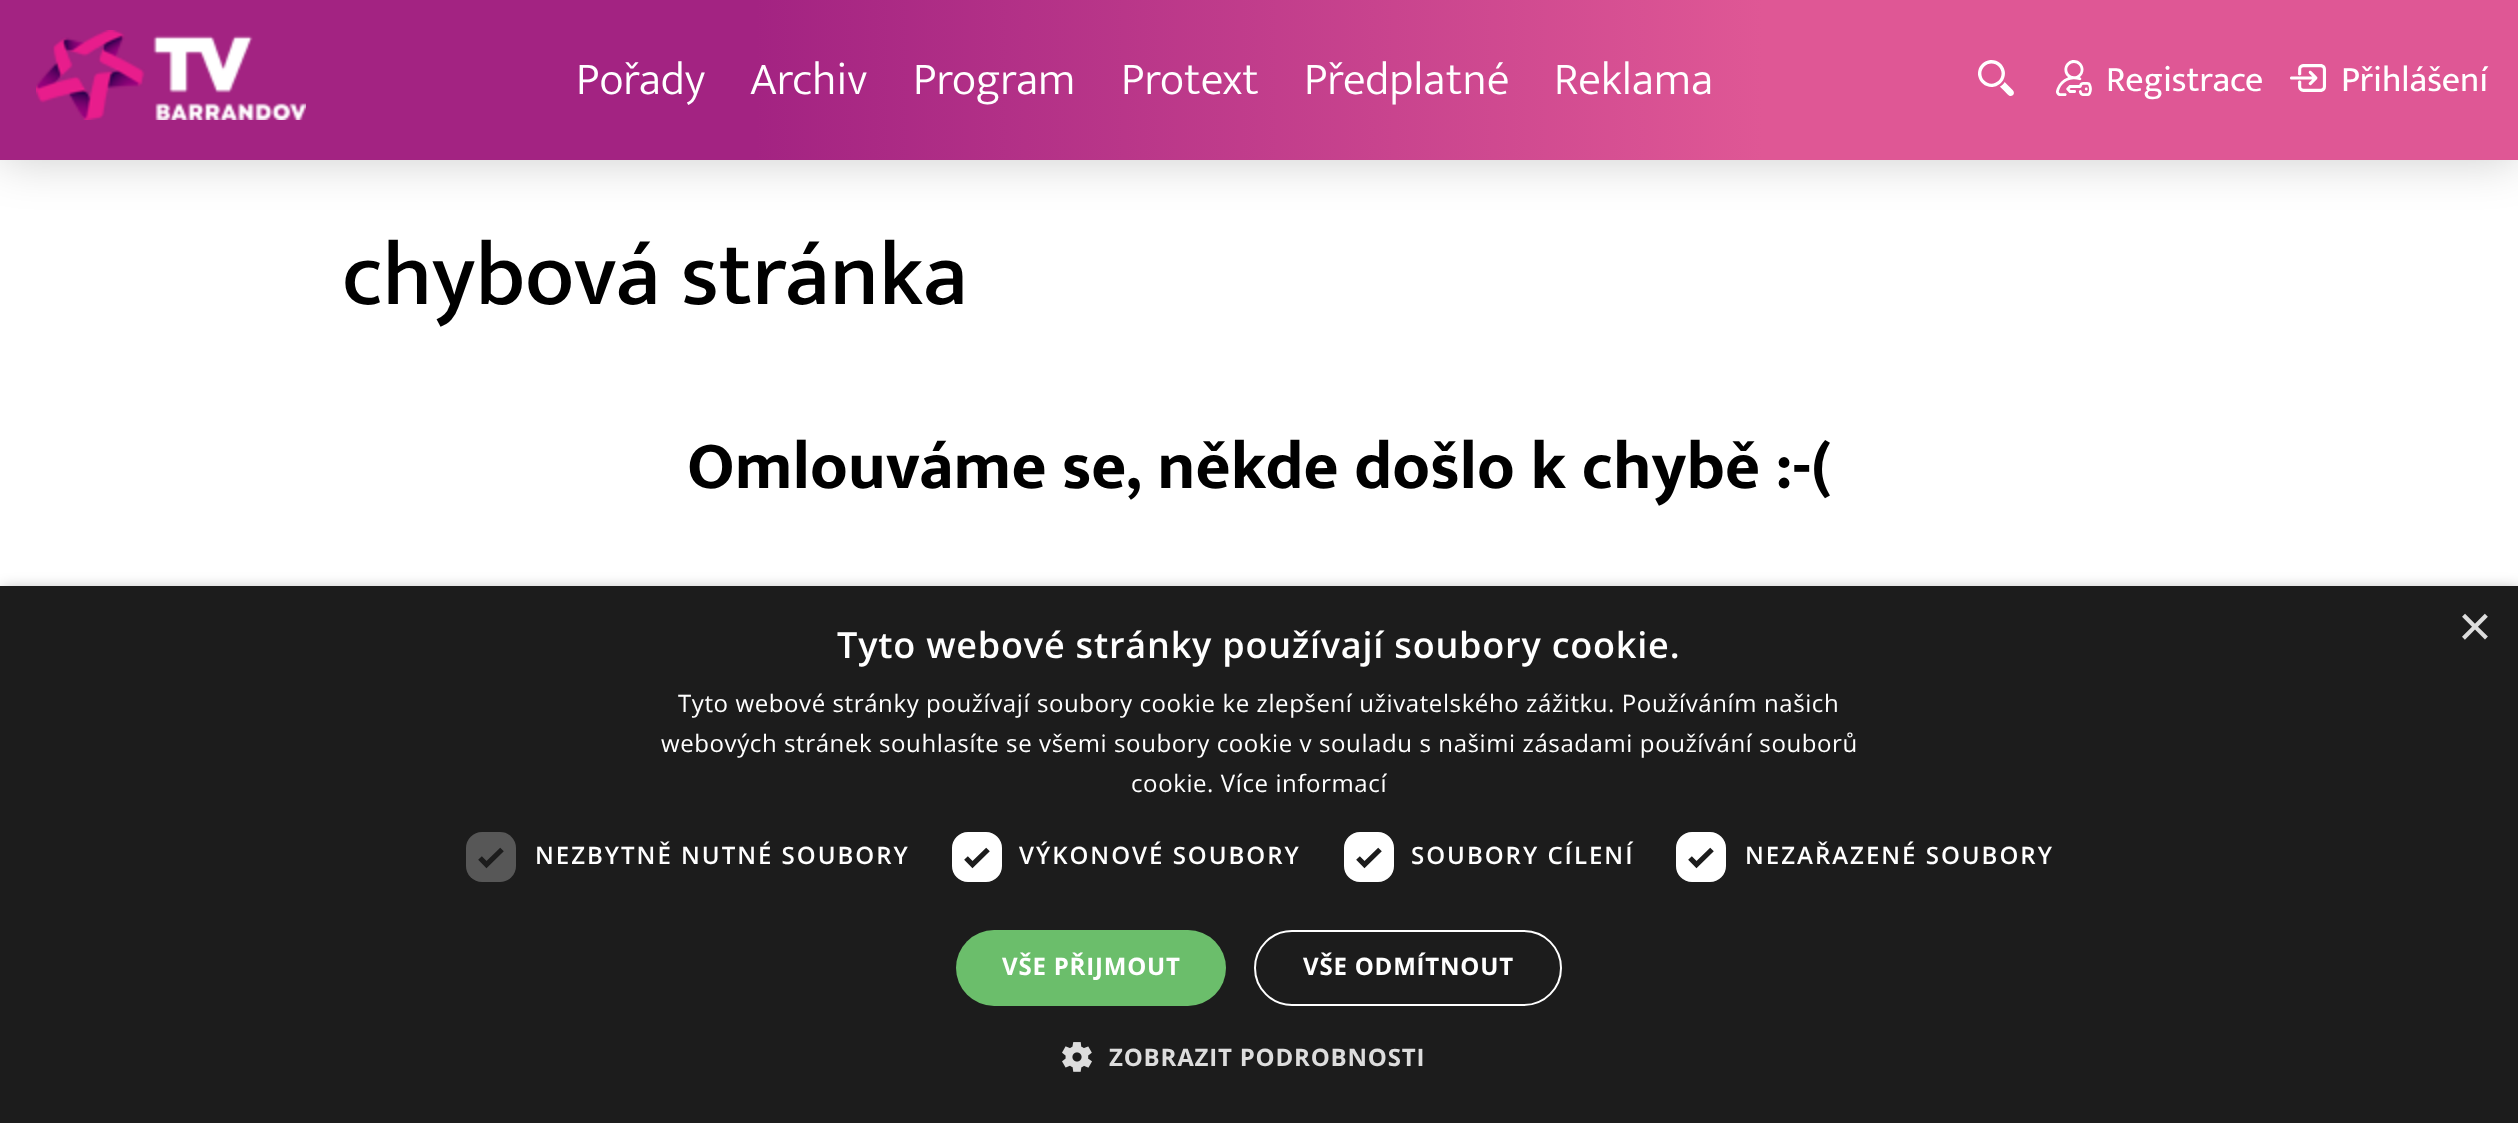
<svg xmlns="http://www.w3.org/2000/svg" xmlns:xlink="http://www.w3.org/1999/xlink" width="2518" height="1123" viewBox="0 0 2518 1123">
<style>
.cls-1{font:300 46px Mukta;fill:#ffffff}
.cls-2{font:36px Mukta;fill:#ffffff}
.cls-3{font:500 90.5px Mukta;fill:#000000}
.cls-4{font:bold 67.7px Mukta;fill:#000000}
.cls-5{font:58px Liberation Sans;fill:#dddddd}
.cls-6{font:600 36px Open Sans;letter-spacing:0.8px;fill:#ffffff}
.cls-7{font:24px Open Sans;letter-spacing:0.6px;fill:#ffffff}
.cls-8{font:600 24px Open Sans;letter-spacing:2px;fill:#ffffff}
.cls-9{font:bold 24px Open Sans;letter-spacing:0.8px;fill:#ffffff}
.cls-10{font:bold 24px Open Sans;letter-spacing:0.8px;fill:#dddddd}
</style>
<defs>
<linearGradient id="g1" gradientUnits="userSpaceOnUse" x1="0" y1="80" x2="2518" y2="80"><stop offset="0.3" stop-color="#a32382"/><stop offset="0.7" stop-color="#df5795"/></linearGradient>
</defs>
<rect width="100%" height="100%" fill="#ffffff"/>
<rect fill="#000000" fill-opacity="0.2" filter="blur(24px)" x="0" y="0" width="2518" height="160"/>
<rect fill="url(#g1)" x="0" y="0" width="2518" height="160"/>
<image xlink:href="image0.png" x="36" y="30" width="270" height="90"/>
<image xlink:href="image1.png" x="1978" y="60" width="36" height="36"/>
<image xlink:href="image2.png" x="2056" y="60" width="36" height="36"/>
<image xlink:href="image3.png" x="2290" y="64" width="36" height="28"/>
<rect fill="#000000" fill-opacity="0.35" filter="blur(8px)" x="2" y="590" width="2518" height="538"/>
<rect fill="#1c1c1c" x="0" y="586" width="2518" height="537"/>
<rect fill="#575757" x="466" y="832" width="50" height="50" rx="16"/>
<path fill="none" stroke="#1c1c1c" stroke-width="5.2" d="M480 858L486.5 864.5L502 849.5"/>
<rect fill="#ffffff" stroke="#ffffff" stroke-width="4" x="954" y="834" width="46" height="46" rx="14"/>
<path fill="none" stroke="#1c1c1c" stroke-width="5.2" d="M966 858L972.5 864.5L988 849.5"/>
<rect fill="#ffffff" stroke="#ffffff" stroke-width="4" x="1346" y="834" width="46" height="46" rx="14"/>
<path fill="none" stroke="#1c1c1c" stroke-width="5.2" d="M1358 858L1364.5 864.5L1380 849.5"/>
<rect fill="#ffffff" stroke="#ffffff" stroke-width="4" x="1678" y="834" width="46" height="46" rx="14"/>
<path fill="none" stroke="#1c1c1c" stroke-width="5.2" d="M1690 858L1696.5 864.5L1712 849.5"/>
<rect fill="#6bbe6b" x="956" y="930" width="270" height="76" rx="38"/>
<rect fill="none" stroke="#ffffff" stroke-width="2" x="1255" y="931" width="306" height="74" rx="37"/>
<image xlink:href="image4.png" x="1062" y="1042" width="30" height="30"/>
<text class="cls-1" x="576" y="94">Pořady</text>
<text class="cls-1" x="750" y="94">Archiv</text>
<text class="cls-1" x="913" y="94">Program</text>
<text class="cls-1" x="1121" y="94">Protext</text>
<text class="cls-1" x="1304" y="94">Předplatné</text>
<text class="cls-1" x="1554" y="94">Reklama</text>
<text class="cls-2" x="2106" y="91">Registrace</text>
<text class="cls-2" x="2341" y="91">Přihlášení</text>
<text class="cls-3" x="342" y="304">chybová stránka</text>
<text class="cls-4" x="687" y="488">Omlouváme se, někde došlo k chybě :-(</text>
<text class="cls-5" x="2458" y="646">×</text>
<text class="cls-6" x="837" y="658">Tyto webové stránky používají soubory cookie.</text>
<text class="cls-7" x="678" y="712">Tyto webové stránky používají soubory cookie ke zlepšení uživatelského zážitku. Používáním našich</text>
<text class="cls-7" x="661" y="752">webových stránek souhlasíte se všemi soubory cookie v souladu s našimi zásadami používání souborů</text>
<text class="cls-7" x="1131" y="792">cookie. Více informací</text>
<text class="cls-8" x="535" y="864">NEZBYTNĚ NUTNÉ SOUBORY</text>
<text class="cls-8" x="1019" y="864">VÝKONOVÉ SOUBORY</text>
<text class="cls-8" x="1411" y="864">SOUBORY CÍLENÍ</text>
<text class="cls-8" x="1745" y="864">NEZAŘAZENÉ SOUBORY</text>
<text class="cls-9" x="1002" y="975">VŠE PŘIJMOUT</text>
<text class="cls-9" x="1303" y="975">VŠE ODMÍTNOUT</text>
<text class="cls-10" x="1109" y="1066">ZOBRAZIT PODROBNOSTI</text>
</svg>
